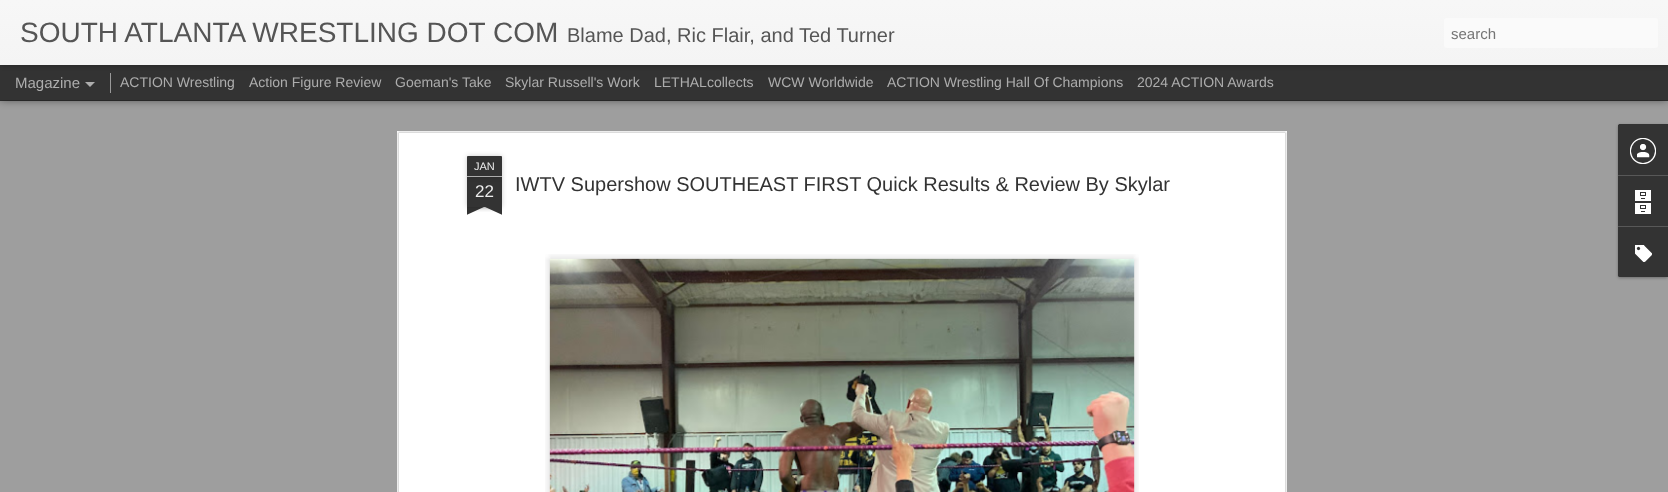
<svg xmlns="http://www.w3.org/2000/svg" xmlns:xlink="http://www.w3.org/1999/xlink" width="1668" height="492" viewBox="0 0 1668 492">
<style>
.cls-1{font:28px Liberation Sans;fill:#555555}
.cls-2{font:20px Liberation Sans;fill:#555555}
.cls-3{font:15px Liberation Sans;fill:#757575}
.cls-4{font:15px Liberation Sans;fill:#adadad}
.cls-5{font:14px Liberation Sans;fill:#adadad}
.cls-6{font:11px Liberation Sans;fill:#eeeeee}
.cls-7{font:17px Liberation Sans;fill:#eeeeee}
.cls-8{font:20px Liberation Sans;fill:#333333}
</style>
<defs>
<linearGradient id="g1" gradientUnits="userSpaceOnUse" x1="0" y1="0" x2="0" y2="65"><stop offset="0" stop-color="#f7f7f7"/><stop offset="1" stop-color="#f4f4f4"/></linearGradient>
<clipPath id="clip1"><rect x="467" y="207" width="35" height="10"/></clipPath>
<clipPath id="clip2"><rect x="467" y="207" width="35" height="10"/></clipPath>
</defs>
<rect width="100%" height="100%" fill="#333333"/>
<rect fill="#9e9e9e" x="0" y="101" width="1668" height="391"/>
<rect fill="#000000" fill-opacity="0.5" filter="blur(4px)" x="0" y="65" width="1668" height="35"/>
<rect fill="#333333" x="0" y="65" width="1668" height="35"/>
<rect fill="#999999" x="110" y="73" width="1" height="20"/>
<rect fill="#000000" fill-opacity="0.3" filter="blur(2.5px)" x="0" y="0" width="1668" height="65"/>
<rect fill="url(#g1)" x="0" y="0" width="1668" height="65"/>
<rect fill="#fafafa" x="1444" y="18" width="214" height="30" rx="3"/>
<path fill="#adadad" d="M85 82H95L90 87Z"/>
<rect fill="#ffffff" x="397" y="131" width="890" height="361"/>
<image xlink:href="image0.png" x="397" y="131" width="890" height="361"/>
<rect fill="#000000" fill-opacity="0.2" filter="blur(2.5px)" x="467" y="177" width="35" height="30"/>
<rect fill="#333333" x="467" y="177" width="35" height="30"/>
<rect fill="#000000" fill-opacity="0.2" filter="blur(2.5px)" x="467" y="156" width="35" height="21" rx="1"/>
<path fill="#333333" d="M468 156H501C501.5 156 502 156.5 502 157V177H467V157C467 156.5 467.5 156 468 156Z"/>
<rect fill="#adadad" x="467" y="176" width="35" height="1"/>
<g clip-path="url(#clip1)">
<rect fill="#000000" fill-opacity="0.2" filter="blur(2.5px)" x="458" y="197" width="50" height="10"/>
</g>
<g clip-path="url(#clip2)">
<path fill="#333333" d="M458 208L504 187L508 196L462 217Z"/>
</g>
<g clip-path="url(#clip1)">
<rect fill="#000000" fill-opacity="0.2" filter="blur(2.5px)" x="461" y="197" width="50" height="10"/>
</g>
<g clip-path="url(#clip2)">
<path fill="#333333" d="M465 187L511 208L507 217L461 196Z"/>
</g>
<image xlink:href="image1.png" x="545" y="254" width="594" height="238"/>
<image xlink:href="image2.png" x="549" y="258" width="586" height="234"/>
<rect fill="#000000" fill-opacity="0.3" filter="blur(1.5px)" x="1618" y="125" width="50" height="153" rx="2"/>
<path fill="#333333" d="M1620 124H1668V277H1620C1619 277 1618 276 1618 275V126C1618 125 1619 124 1620 124Z"/>
<path fill="#333333" d="M1620 124H1668V175H1618V126C1618 125 1619 124 1620 124Z"/>
<image xlink:href="image3.png" x="1630" y="138" width="26" height="26"/>
<rect fill="#585858" x="1618" y="175" width="50" height="1"/>
<image xlink:href="image4.png" x="1635" y="190" width="16" height="24"/>
<path fill="#333333" d="M1618 226H1668V277H1620C1619 277 1618 276 1618 275Z"/>
<rect fill="#585858" x="1618" y="226" width="50" height="1"/>
<image xlink:href="image5.png" x="1635" y="245" width="17" height="17"/>
<text class="cls-1" x="20" y="42">SOUTH ATLANTA WRESTLING DOT COM</text>
<text class="cls-2" x="567" y="42">Blame Dad, Ric Flair, and Ted Turner</text>
<text class="cls-3" x="1451" y="39">search</text>
<text class="cls-4" x="15" y="88">Magazine</text>
<text class="cls-5" x="120" y="87">ACTION Wrestling</text>
<text class="cls-5" x="249" y="87">Action Figure Review</text>
<text class="cls-5" x="395" y="87">Goeman's Take</text>
<text class="cls-5" x="505" y="87">Skylar Russell's Work</text>
<text class="cls-5" x="654" y="87">LETHALcollects</text>
<text class="cls-5" x="768" y="87">WCW Worldwide</text>
<text class="cls-5" x="887" y="87">ACTION Wrestling Hall Of Champions</text>
<text class="cls-5" x="1137" y="87">2024 ACTION Awards</text>
<text class="cls-6" x="474" y="170">JAN</text>
<text class="cls-7" x="475" y="197">22</text>
<text class="cls-8" x="515" y="191">IWTV Supershow SOUTHEAST FIRST Quick Results &amp; Review By Skylar</text>
</svg>
